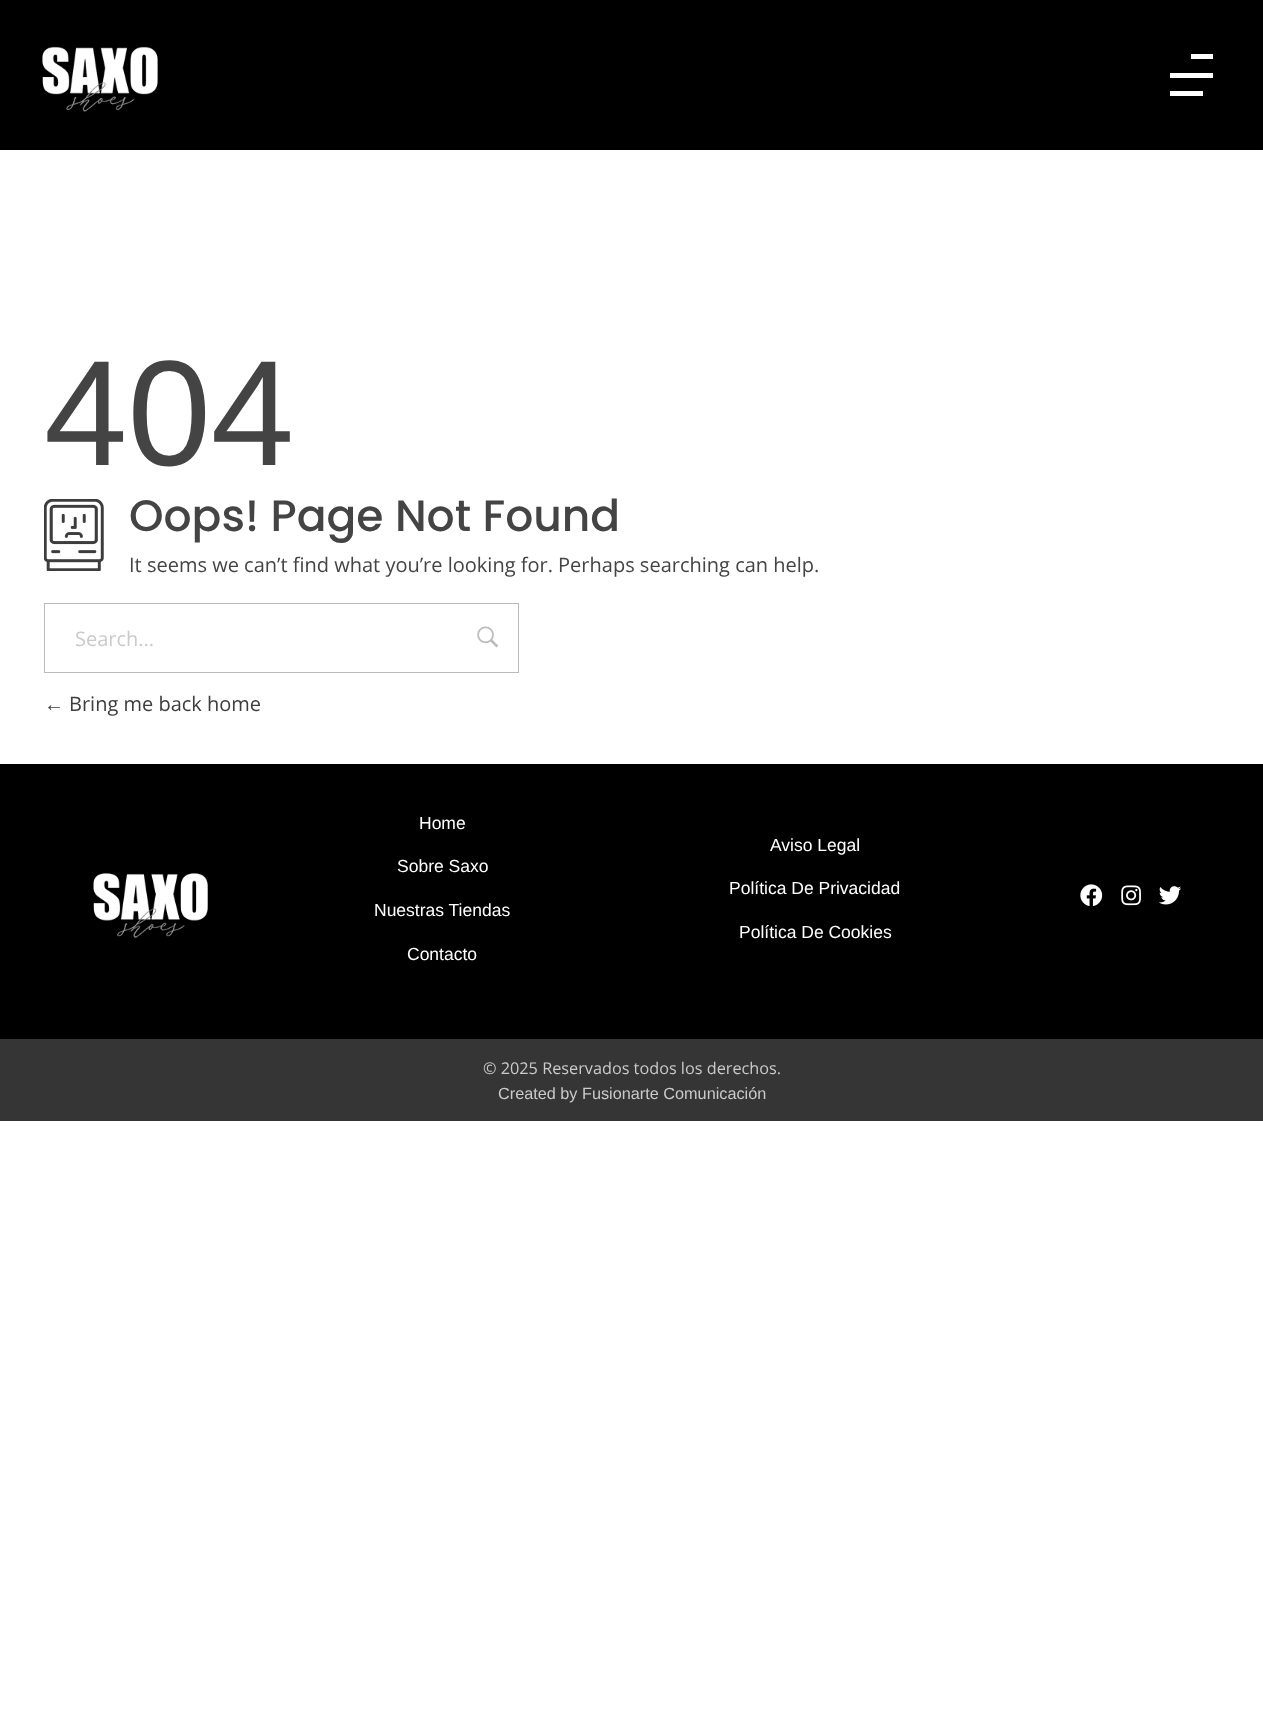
<svg xmlns="http://www.w3.org/2000/svg" xmlns:xlink="http://www.w3.org/1999/xlink" width="1263" height="1715" viewBox="0 0 1263 1715">
<style>
.cls-1{font:150px Liberation Sans;fill:#444444}
.cls-2{font:500 44px Poppins;fill:#444444}
.cls-3{font:20px Open Sans;fill:#444444}
.cls-4{font:20px Open Sans;fill:#cacaca}
.cls-5{font:20px Liberation Sans;fill:#3d3d3d}
.cls-6{font:20px Open Sans;fill:#3d3d3d}
.cls-7{font:17.5px Liberation Sans;fill:#ffffff}
.cls-8{font:16.25px Open Sans;fill:#cacaca}
.cls-9{font:16.25px Liberation Sans;fill:#cacaca}
</style>
<rect width="100%" height="100%" fill="#ffffff"/>
<rect fill="#000000" x="0" y="0" width="1263" height="150"/>
<image xlink:href="image0.png" x="42" y="46" width="116" height="66"/>
<rect fill="#ffffff" x="1191" y="54" width="22" height="5"/>
<rect fill="#ffffff" x="1170" y="73" width="43" height="5"/>
<rect fill="#ffffff" x="1170" y="91" width="33" height="5"/>
<image xlink:href="image1.png" x="44" y="499" width="60" height="72"/>
<rect fill="none" stroke="#bbbbbb" x="44.5" y="603.5" width="474" height="69"/>
<image xlink:href="image2.png" x="477" y="626" width="22" height="22"/>
<rect fill="#000000" x="0" y="764" width="1263" height="275"/>
<image xlink:href="image3.png" x="93" y="873" width="115" height="65"/>
<image xlink:href="image4.png" x="1080" y="884" width="23" height="22"/>
<image xlink:href="image5.png" x="1121" y="885" width="20" height="21"/>
<image xlink:href="image6.png" x="1159" y="886" width="23" height="19"/>
<rect fill="#353535" x="0" y="1039" width="1263" height="82"/>
<text class="cls-1" x="44" y="465">404</text>
<text class="cls-2" x="129" y="531">Oops! Page Not Found</text>
<text class="cls-3" x="129" y="572">It seems we can’t find what you’re looking for. Perhaps searching can help.</text>
<text class="cls-4" x="75" y="646">Search...</text>
<text class="cls-5" x="44" y="711">←</text>
<text class="cls-6" x="69" y="711">Bring me back home</text>
<text class="cls-7" x="419" y="829">Home</text>
<text class="cls-7" x="397" y="872">Sobre Saxo</text>
<text class="cls-7" x="374" y="916">Nuestras Tiendas</text>
<text class="cls-7" x="407" y="960">Contacto</text>
<text class="cls-7" x="770" y="851">Aviso Legal</text>
<text class="cls-7" x="729" y="894">Política De Privacidad</text>
<text class="cls-7" x="739" y="938">Política De Cookies</text>
<text class="cls-8" x="483" y="1074">© 2025 Reservados todos los derechos.</text>
<text class="cls-9" x="498" y="1099">Created by Fusionarte Comunicación</text>
</svg>
